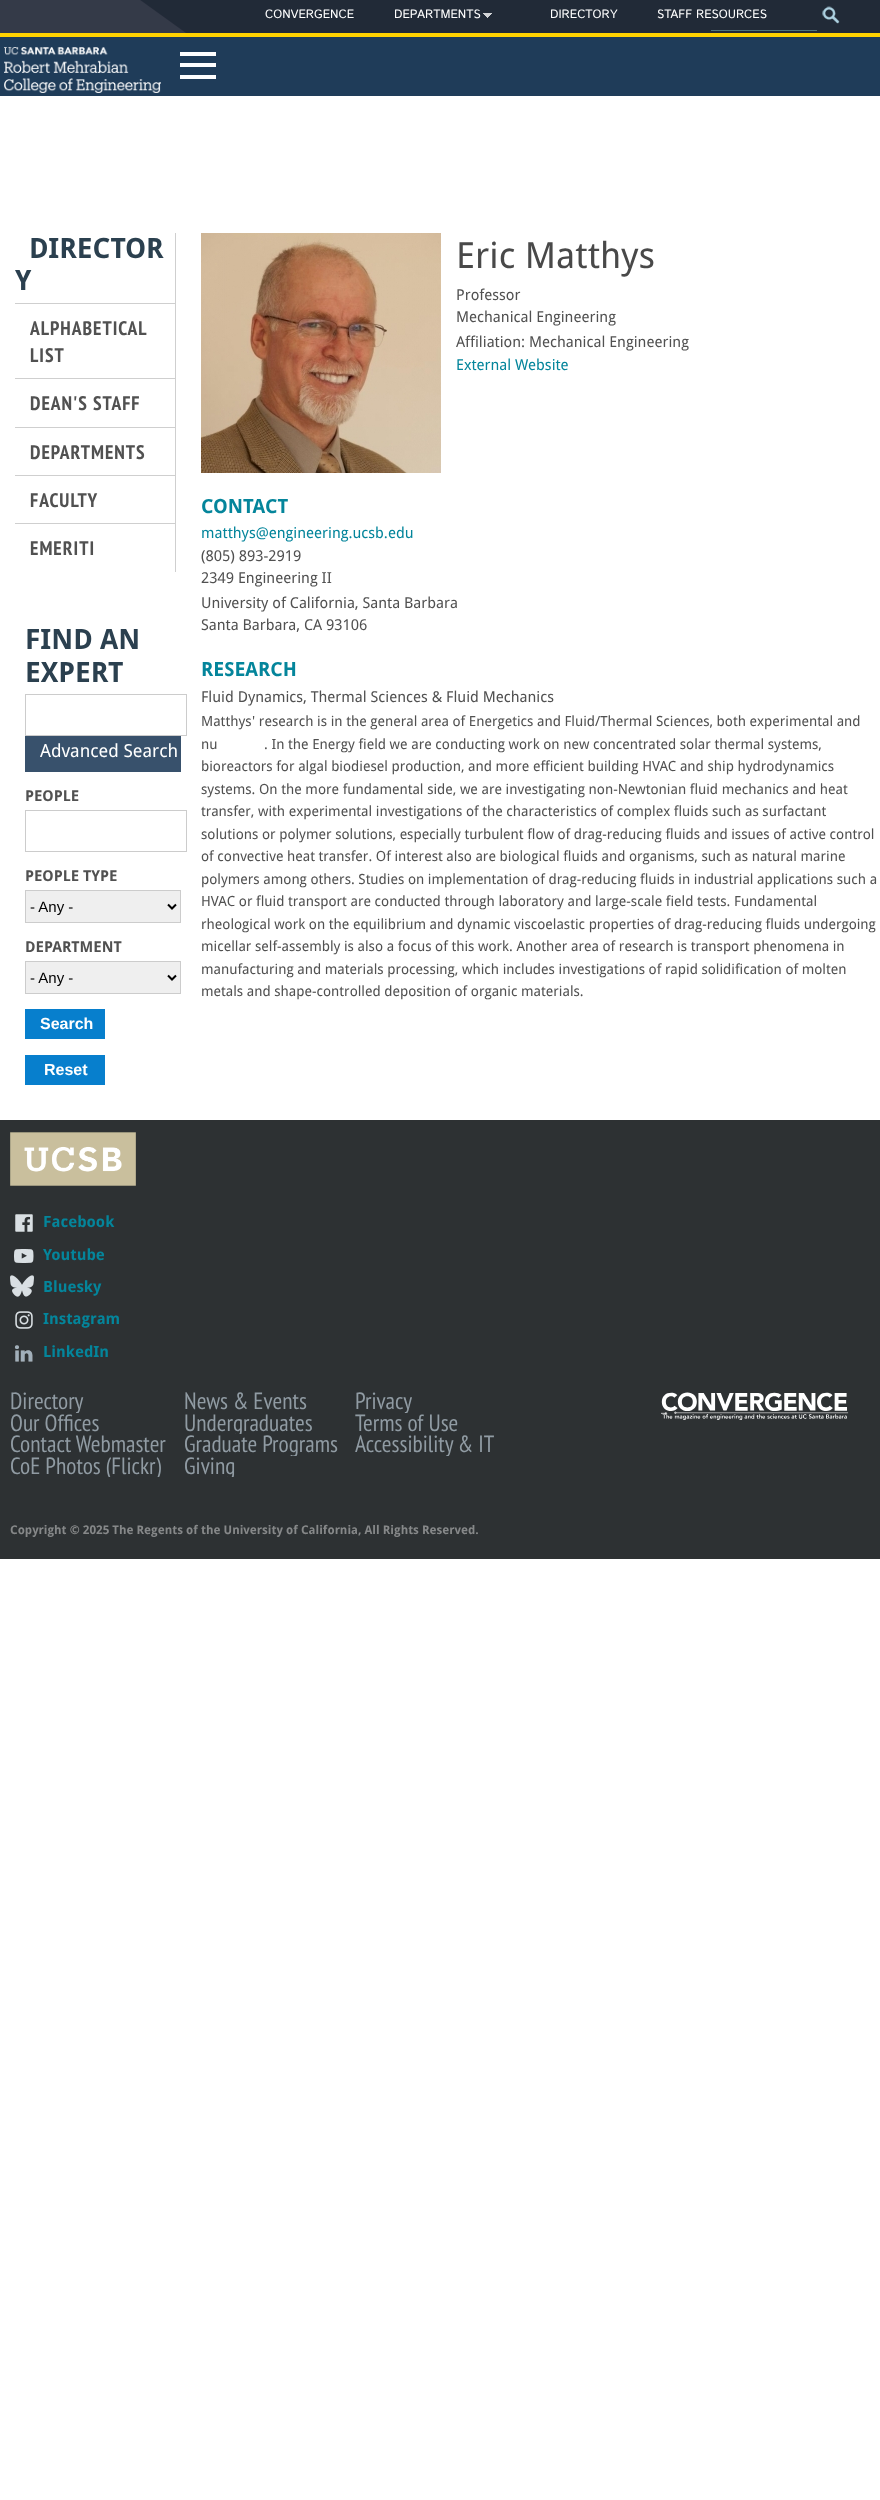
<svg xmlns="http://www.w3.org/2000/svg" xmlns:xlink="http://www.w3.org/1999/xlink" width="880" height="2500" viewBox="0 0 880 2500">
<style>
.cls-1{font:12px Istok Web;fill:#ffffff}
.cls-2{font:bold 28px Droid Sans;fill:#2b404f}
.cls-3{font:bold 19.5px PT Sans Narrow;letter-spacing:1px;fill:#515151}
.cls-4{font:18px Droid Sans;fill:#ffffff}
.cls-5{font:bold 15px Droid Sans;fill:#515151}
.cls-6{font:15px Liberation Sans;fill:#000000}
.cls-7{font:bold 16px Liberation Sans;fill:#ffffff}
.cls-8{font:36px Droid Sans;fill:#494949}
.cls-9{font:15px Droid Sans;fill:#515151}
.cls-10{font:15px Droid Sans;fill:#04859b}
.cls-11{font:bold 19.5px Droid Sans;fill:#04859b}
.cls-12{font:14px Droid Sans;fill:#515151}
.cls-13{font:bold 15.5px Droid Sans;fill:#04859b}
.cls-14{font:23.5px PT Sans Narrow;fill:#909ba3}
.cls-15{font:bold 12px Droid Sans;fill:#868889}
</style>
<defs>
<clipPath id="clip1"><rect x="10" y="1391" width="174" height="22"/></clipPath>
<clipPath id="clip2"><rect x="355" y="1391" width="155" height="22"/></clipPath>
<clipPath id="clip3"><rect x="184" y="1413" width="171" height="21"/></clipPath>
<clipPath id="clip4"><rect x="184" y="1434" width="171" height="22"/></clipPath>
<clipPath id="clip5"><rect x="355" y="1434" width="155" height="22"/></clipPath>
<clipPath id="clip6"><rect x="10" y="1456" width="174" height="21"/></clipPath>
<clipPath id="clip7"><rect x="184" y="1456" width="171" height="21"/></clipPath>
</defs>
<rect width="100%" height="100%" fill="#ffffff"/>
<rect fill="#343a48" x="0" y="0" width="880" height="33"/>
<image xlink:href="image0.png" x="140" y="0" width="740" height="33"/>
<image xlink:href="image1.png" x="483" y="13" width="9" height="5"/>
<image xlink:href="image2.png" x="822" y="6" width="18" height="18"/>
<rect fill="#50757b" x="711" y="30" width="106" height="1"/>
<rect fill="#1f3c59" x="0" y="37" width="880" height="59"/>
<rect fill="#ffd200" x="0" y="33" width="880" height="4"/>
<image xlink:href="image3.png" x="4" y="47" width="157" height="46"/>
<rect fill="#ffffff" x="180" y="52" width="36" height="4"/>
<rect fill="#ffffff" x="180" y="75" width="36" height="4"/>
<rect fill="#ffffff" x="180" y="63" width="36" height="4"/>
<rect fill="#cfcfcf" x="175" y="233" width="1" height="339"/>
<rect fill="#cfcfcf" x="15" y="303" width="161" height="1"/>
<rect fill="#cfcfcf" x="15" y="378" width="160" height="1"/>
<rect fill="#cfcfcf" x="15" y="427" width="160" height="1"/>
<rect fill="#cfcfcf" x="15" y="475" width="160" height="1"/>
<rect fill="#cfcfcf" x="15" y="523" width="160" height="1"/>
<rect fill="none" stroke="#cccccc" x="25.5" y="694.5" width="161" height="41"/>
<rect fill="#38516c" x="25" y="736" width="156" height="36"/>
<rect fill="none" stroke="#cccccc" x="25.5" y="810.5" width="161" height="41"/>
<rect fill="#efefef" stroke="#cccccc" x="25.5" y="890.5" width="155" height="32"/>
<path fill="none" stroke="#000000" stroke-width="2" d="M168 904.5L172 908.5L176 904.5"/>
<rect fill="#efefef" stroke="#cccccc" x="25.5" y="961.5" width="155" height="32"/>
<path fill="none" stroke="#000000" stroke-width="2" d="M168 975.5L172 979.5L176 975.5"/>
<rect fill="#077fcd" x="25" y="1009" width="80" height="30"/>
<rect fill="#077fcd" x="25" y="1055" width="80" height="30"/>
<image xlink:href="image4.png" x="201" y="233" width="240" height="240"/>
<rect fill="#2d3133" x="0" y="1120" width="880" height="439"/>
<image xlink:href="image5.png" x="10" y="1132" width="126" height="54"/>
<image xlink:href="image6.png" x="15" y="1214" width="18" height="18"/>
<image xlink:href="image7.png" x="14" y="1249" width="20" height="14"/>
<image xlink:href="image8.png" x="10" y="1275" width="24" height="22"/>
<image xlink:href="image9.png" x="15" y="1311" width="18" height="18"/>
<image xlink:href="image10.png" x="14" y="1345" width="19" height="17"/>
<image xlink:href="image11.png" x="661" y="1392" width="188" height="28"/>
<text class="cls-1" x="265" y="18">CONVERGENCE</text>
<text class="cls-1" x="394" y="18">DEPARTMENTS</text>
<text class="cls-1" x="550" y="18">DIRECTORY</text>
<text class="cls-1" x="657" y="18">STAFF RESOURCES</text>
<text class="cls-2" x="29" y="258">DIRECTOR</text>
<text class="cls-2" x="15" y="290">Y</text>
<text class="cls-3"><tspan x="30" y="335">ALPHABETICAL</tspan><tspan x="30" y="362">LIST</tspan></text>
<text class="cls-3" x="30" y="410">DEAN'S STAFF</text>
<text class="cls-3" x="30" y="459">DEPARTMENTS</text>
<text class="cls-3" x="30" y="507">FACULTY</text>
<text class="cls-3" x="30" y="555">EMERITI</text>
<text class="cls-2"><tspan x="25" y="649">FIND AN</tspan><tspan x="25" y="682">EXPERT</tspan></text>
<text class="cls-4" x="40" y="757">Advanced Search</text>
<text class="cls-5" x="25" y="801">PEOPLE</text>
<text class="cls-5" x="25" y="881">PEOPLE TYPE</text>
<text class="cls-6" x="30" y="912">- Any -</text>
<text class="cls-5" x="25" y="952">DEPARTMENT</text>
<text class="cls-6" x="30" y="983">- Any -</text>
<text class="cls-7" x="40" y="1029">Search</text>
<text class="cls-7" x="44" y="1075">Reset</text>
<text class="cls-8" x="456" y="268">Eric Matthys</text>
<text class="cls-9"><tspan x="456" y="300">Professor</tspan><tspan x="456" y="322">Mechanical Engineering</tspan><tspan x="456" y="347">Affiliation: Mechanical Engineering</tspan></text>
<text class="cls-10" x="456" y="370">External Website</text>
<text class="cls-11" x="201" y="513">CONTACT</text>
<text class="cls-10" x="201" y="538">matthys@engineering.ucsb.edu</text>
<text class="cls-9"><tspan x="201" y="561">(805) 893-2919</tspan><tspan x="201" y="583">2349 Engineering II</tspan><tspan x="201" y="608">University of California, Santa Barbara</tspan><tspan x="201" y="630">Santa Barbara, CA 93106</tspan></text>
<text class="cls-11" x="201" y="676">RESEARCH</text>
<text class="cls-9" x="201" y="702">Fluid Dynamics, Thermal Sciences &amp; Fluid Mechanics</text>
<text class="cls-12"><tspan x="201" y="726">Matthys' research is in the general area of Energetics and Fluid/Thermal Sciences, both experimental and</tspan><tspan x="201" y="749">nu</tspan></text>
<text class="cls-12" x="264" y="749">. In the Energy field we are conducting work on new concentrated solar thermal systems,</text>
<text class="cls-12"><tspan x="201" y="771">bioreactors for algal biodiesel production, and more efficient building HVAC and ship hydrodynamics</tspan><tspan x="201" y="794">systems. On the more fundamental side, we are investigating non-Newtonian fluid mechanics and heat</tspan><tspan x="201" y="816">transfer, with experimental investigations of the characteristics of complex fluids such as surfactant</tspan><tspan x="201" y="839">solutions or polymer solutions, especially turbulent flow of drag-reducing fluids and issues of active control</tspan><tspan x="201" y="861">of convective heat transfer. Of interest also are biological fluids and organisms, such as natural marine</tspan><tspan x="201" y="884">polymers among others. Studies on implementation of drag-reducing fluids in industrial applications such a</tspan><tspan x="201" y="906">HVAC or fluid transport are conducted through laboratory and large-scale field tests. Fundamental</tspan><tspan x="201" y="929">rheological work on the equilibrium and dynamic viscoelastic properties of drag-reducing fluids undergoing</tspan><tspan x="201" y="951">micellar self-assembly is also a focus of this work. Another area of research is transport phenomena in</tspan><tspan x="201" y="974">manufacturing and materials processing, which includes investigations of rapid solidification of molten</tspan><tspan x="201" y="996">metals and shape-controlled deposition of organic materials.</tspan></text>
<text class="cls-13" x="43" y="1227">Facebook</text>
<text class="cls-13" x="43" y="1260">Youtube</text>
<text class="cls-13" x="43" y="1292">Bluesky</text>
<text class="cls-13" x="43" y="1324">Instagram</text>
<text class="cls-13" x="43" y="1357">LinkedIn</text>
<g clip-path="url(#clip1)">
<text class="cls-14" x="10" y="1409">Directory</text>
</g>
<text class="cls-14" x="184" y="1409">News &amp; Events</text>
<g clip-path="url(#clip2)">
<text class="cls-14" x="355" y="1409">Privacy</text>
</g>
<text class="cls-14" x="10" y="1431">Our Offices</text>
<g clip-path="url(#clip3)">
<text class="cls-14" x="184" y="1431">Undergraduates</text>
</g>
<text class="cls-14" x="355" y="1431">Terms of Use</text>
<text class="cls-14" x="10" y="1452">Contact Webmaster</text>
<g clip-path="url(#clip4)">
<text class="cls-14" x="184" y="1452">Graduate Programs</text>
</g>
<g clip-path="url(#clip5)">
<text class="cls-14" x="355" y="1452">Accessibility &amp; IT</text>
</g>
<g clip-path="url(#clip6)">
<text class="cls-14" x="10" y="1474">CoE Photos (Flickr)</text>
</g>
<g clip-path="url(#clip7)">
<text class="cls-14" x="184" y="1474">Giving</text>
</g>
<text class="cls-15" x="10" y="1534">Copyright © 2025 The Regents of the University of California, All Rights Reserved.</text>
</svg>
